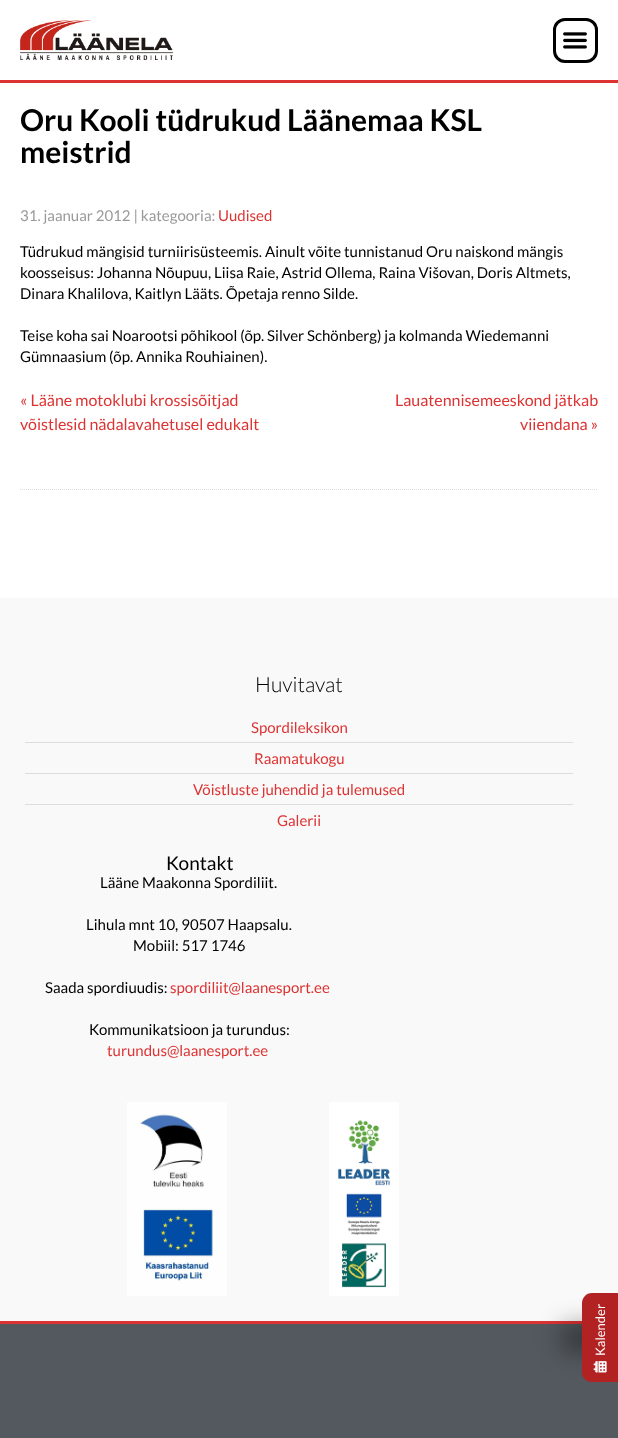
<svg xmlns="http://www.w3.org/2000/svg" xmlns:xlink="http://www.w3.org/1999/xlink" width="618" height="1438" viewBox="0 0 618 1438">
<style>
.cls-1{font:bold 30px Lato;fill:#000000}
.cls-2{font:15px Lato;fill:#999999}
.cls-3{font:15px Lato;fill:#dd3333}
.cls-4{font:15px Lato;fill:#000000}
.cls-5{font:16px Lato;fill:#dd3333}
.cls-6{font:300 21px Lato;fill:#000000}
.cls-7{font:19px Lato;fill:#000000}
.cls-8{font:13px Lato;fill:#ffffff}
</style>
<rect width="100%" height="100%" fill="#ffffff"/>
<rect fill="#dd3333" x="0" y="80" width="618" height="3"/>
<image xlink:href="image0.png" x="20" y="20" width="153" height="40"/>
<rect fill="none" stroke="#000000" stroke-width="3" x="554.5" y="19.5" width="42" height="42" rx="10.5"/>
<image xlink:href="image1.png" x="563" y="32" width="24" height="17"/>
<path fill="none" stroke="#dddddd" stroke-dasharray="1 1" d="M20 489.5H598"/>
<rect fill="#f9f9f9" x="0" y="598" width="618" height="723"/>
<rect fill="#dd3333" x="0" y="1321" width="582" height="3"/>
<rect fill="#dddddd" x="25" y="742" width="548" height="1"/>
<rect fill="#dddddd" x="25" y="773" width="548" height="1"/>
<rect fill="#dddddd" x="25" y="804" width="548" height="1"/>
<image xlink:href="image2.png" x="127" y="1102" width="100" height="194"/>
<image xlink:href="image3.png" x="329" y="1102" width="70" height="194"/>
<rect fill="#54595f" x="0" y="1324" width="618" height="114"/>
<rect fill="#000000" fill-opacity="0.49" filter="blur(13px)" x="563" y="1327" width="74" height="22" rx="3"/>
<path fill="#b22222" d="M582 1372V1303C582 1298 586 1293 592 1293H618V1382H592C586 1382 582 1378 582 1372Z"/>
<image xlink:href="image4.png" x="593" y="1361" width="14" height="12"/>
<text class="cls-1"><tspan x="20" y="131">Oru Kooli tüdrukud Läänemaa KSL</tspan><tspan x="20" y="163">meistrid</tspan></text>
<text class="cls-2" x="20" y="221">31. jaanuar 2012 | kategooria:</text>
<text class="cls-3" x="218" y="221">Uudised</text>
<text class="cls-4"><tspan x="20" y="257">Tüdrukud mängisid turniirisüsteemis. Ainult võite tunnistanud Oru naiskond mängis</tspan><tspan x="20" y="278">koosseisus: Johanna Nõupuu, Liisa Raie, Astrid Ollema, Raina Višovan, Doris Altmets,</tspan><tspan x="20" y="299">Dinara Khalilova, Kaitlyn Lääts. Õpetaja renno Silde.</tspan></text>
<text class="cls-4"><tspan x="20" y="341">Teise koha sai Noarootsi põhikool (õp. Silver Schönberg) ja kolmanda Wiedemanni</tspan><tspan x="20" y="362">Gümnaasium (õp. Annika Rouhiainen).</tspan></text>
<text class="cls-5"><tspan x="20" y="406">« Lääne motoklubi krossisõitjad</tspan><tspan x="20" y="430">võistlesid nädalavahetusel edukalt</tspan></text>
<text class="cls-5" x="395" y="406">Lauatennisemeeskond jätkab</text>
<text class="cls-5" x="520" y="430">viiendana »</text>
<text class="cls-6" x="255" y="692">Huvitavat</text>
<text class="cls-3" x="251" y="733">Spordileksikon</text>
<text class="cls-3" x="254" y="764">Raamatukogu</text>
<text class="cls-3" x="193" y="795">Võistluste juhendid ja tulemused</text>
<text class="cls-3" x="277" y="826">Galerii</text>
<text class="cls-7" x="166" y="870">Kontakt</text>
<text class="cls-4" x="100" y="888">Lääne Maakonna Spordiliit.</text>
<text class="cls-4" x="86" y="930">Lihula mnt 10, 90507 Haapsalu.</text>
<text class="cls-4" x="133" y="951">Mobiil: 517 1746</text>
<text class="cls-4" x="45" y="993">Saada spordiuudis:</text>
<text class="cls-3" x="170" y="993">spordiliit@laanesport.ee</text>
<text class="cls-4" x="89" y="1035">Kommunikatsioon ja turundus:</text>
<text class="cls-3" x="107" y="1056">turundus@laanesport.ee</text>
<text class="cls-8" x="605" y="1356" transform="rotate(-90 605 1356)">Kalender</text>
</svg>
